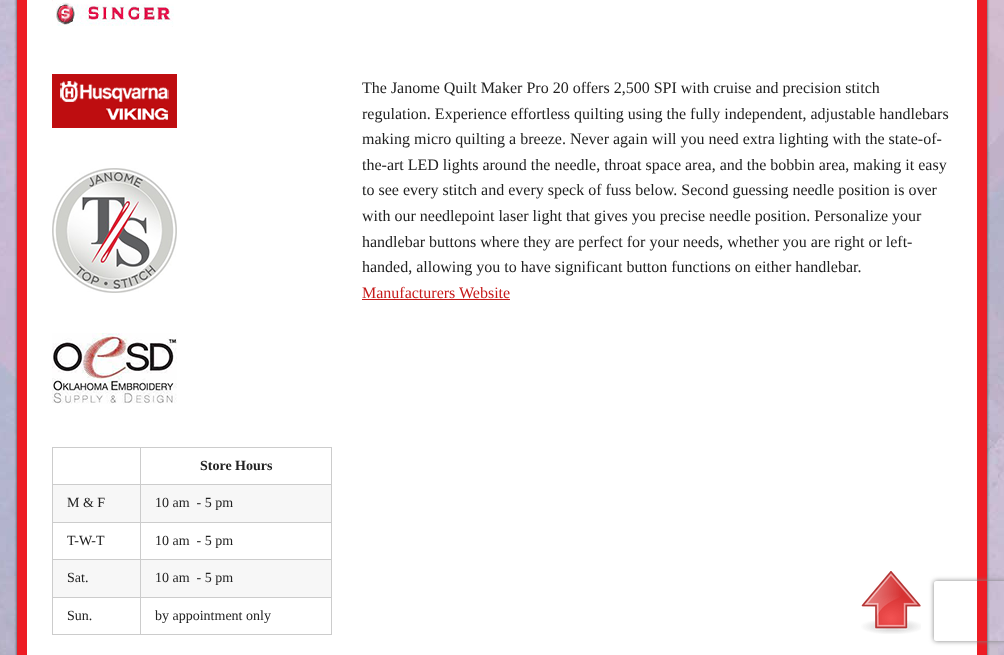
<svg xmlns="http://www.w3.org/2000/svg" xmlns:xlink="http://www.w3.org/1999/xlink" width="1004" height="655" viewBox="0 0 1004 655">
<style>
.cls-1{font:16px Liberation Serif;fill:#222222}
.cls-2{font:16px Liberation Serif;fill:#c61a1a}
.cls-3{font:bold 14px Liberation Serif;fill:#222222}
.cls-4{font:14px Liberation Serif;fill:#222222}
</style>
<defs>
<clipPath id="clip1"><path d="M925 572H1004V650H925ZM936 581H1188C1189 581 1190 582 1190 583V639C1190 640 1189 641 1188 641H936C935 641 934 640 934 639V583C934 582 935 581 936 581Z" clip-rule="evenodd"/></clipPath>
</defs>
<rect width="100%" height="100%" fill="#ffffff"/>
<image xlink:href="image0.png" x="0" y="0" width="1004" height="655"/>
<rect fill="#333333" filter="blur(1.5px)" x="17" y="-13" width="970" height="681" rx="8"/>
<rect fill="#ffffff" stroke="#ed1c24" stroke-width="10" x="22" y="-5" width="960" height="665"/>
<rect fill="#c61a1a" x="362" y="299" width="148" height="1"/>
<image xlink:href="image1.png" x="52" y="0" width="122" height="27"/>
<image xlink:href="image2.png" x="52" y="74" width="125" height="54"/>
<image xlink:href="image3.png" x="52" y="168" width="125" height="125"/>
<image xlink:href="image4.png" x="52" y="333" width="125" height="71"/>
<rect fill="#cccccc" x="52" y="447" width="280" height="1"/>
<rect fill="#cccccc" x="331" y="447" width="1" height="188"/>
<rect fill="#cccccc" x="52" y="634" width="280" height="1"/>
<rect fill="#cccccc" x="52" y="447" width="1" height="188"/>
<rect fill="#cccccc" x="140" y="484" width="192" height="1"/>
<rect fill="#cccccc" x="140" y="522" width="192" height="1"/>
<rect fill="#cccccc" x="140" y="559" width="192" height="1"/>
<rect fill="#cccccc" x="140" y="597" width="192" height="1"/>
<rect fill="#cccccc" x="140" y="597" width="1" height="38"/>
<rect fill="#cccccc" x="52" y="597" width="89" height="1"/>
<rect fill="#cccccc" x="140" y="559" width="1" height="39"/>
<rect fill="#cccccc" x="52" y="559" width="89" height="1"/>
<rect fill="#cccccc" x="140" y="522" width="1" height="38"/>
<rect fill="#cccccc" x="52" y="522" width="89" height="1"/>
<rect fill="#cccccc" x="140" y="484" width="1" height="39"/>
<rect fill="#cccccc" x="52" y="484" width="89" height="1"/>
<rect fill="#cccccc" x="140" y="447" width="1" height="38"/>
<rect fill="#f7f7f7" x="53" y="485" width="87" height="37"/>
<rect fill="#f7f7f7" x="141" y="485" width="190" height="37"/>
<rect fill="#f7f7f7" x="53" y="560" width="87" height="37"/>
<rect fill="#f7f7f7" x="141" y="560" width="190" height="37"/>
<image xlink:href="image5.png" x="861" y="571" width="60" height="63"/>
<g clip-path="url(#clip1)">
<rect fill="#808080" filter="blur(2.5px)" x="934" y="581" width="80" height="60" rx="2"/>
</g>
<text class="cls-1"><tspan x="362" y="93">The Janome Quilt Maker Pro 20 offers 2,500 SPI with cruise and precision stitch</tspan><tspan x="362" y="119">regulation. Experience effortless quilting using the fully independent, adjustable handlebars</tspan><tspan x="362" y="144">making micro quilting a breeze. Never again will you need extra lighting with the state-of-</tspan><tspan x="362" y="170">the-art LED lights around the needle, throat space area, and the bobbin area, making it easy</tspan><tspan x="362" y="195">to see every stitch and every speck of fuss below. Second guessing needle position is over</tspan><tspan x="362" y="221">with our needlepoint laser light that gives you precise needle position. Personalize your</tspan><tspan x="362" y="247">handlebar buttons where they are perfect for your needs, whether you are right or left-</tspan><tspan x="362" y="272">handed, allowing you to have significant button functions on either handlebar.</tspan></text>
<text class="cls-2" x="362" y="298">Manufacturers Website</text>
<text class="cls-3" x="200" y="470">Store Hours</text>
<text class="cls-4" x="67" y="507">M &amp; F</text>
<text class="cls-4" xml:space="preserve" x="155" y="507">10 am  - 5 pm</text>
<text class="cls-4" x="67" y="545">T-W-T</text>
<text class="cls-4" xml:space="preserve" x="155" y="545">10 am  - 5 pm</text>
<text class="cls-4" x="67" y="582">Sat.</text>
<text class="cls-4" xml:space="preserve" x="155" y="582">10 am  - 5 pm</text>
<text class="cls-4" x="67" y="620">Sun.</text>
<text class="cls-4" x="155" y="620">by appointment only</text>
</svg>
